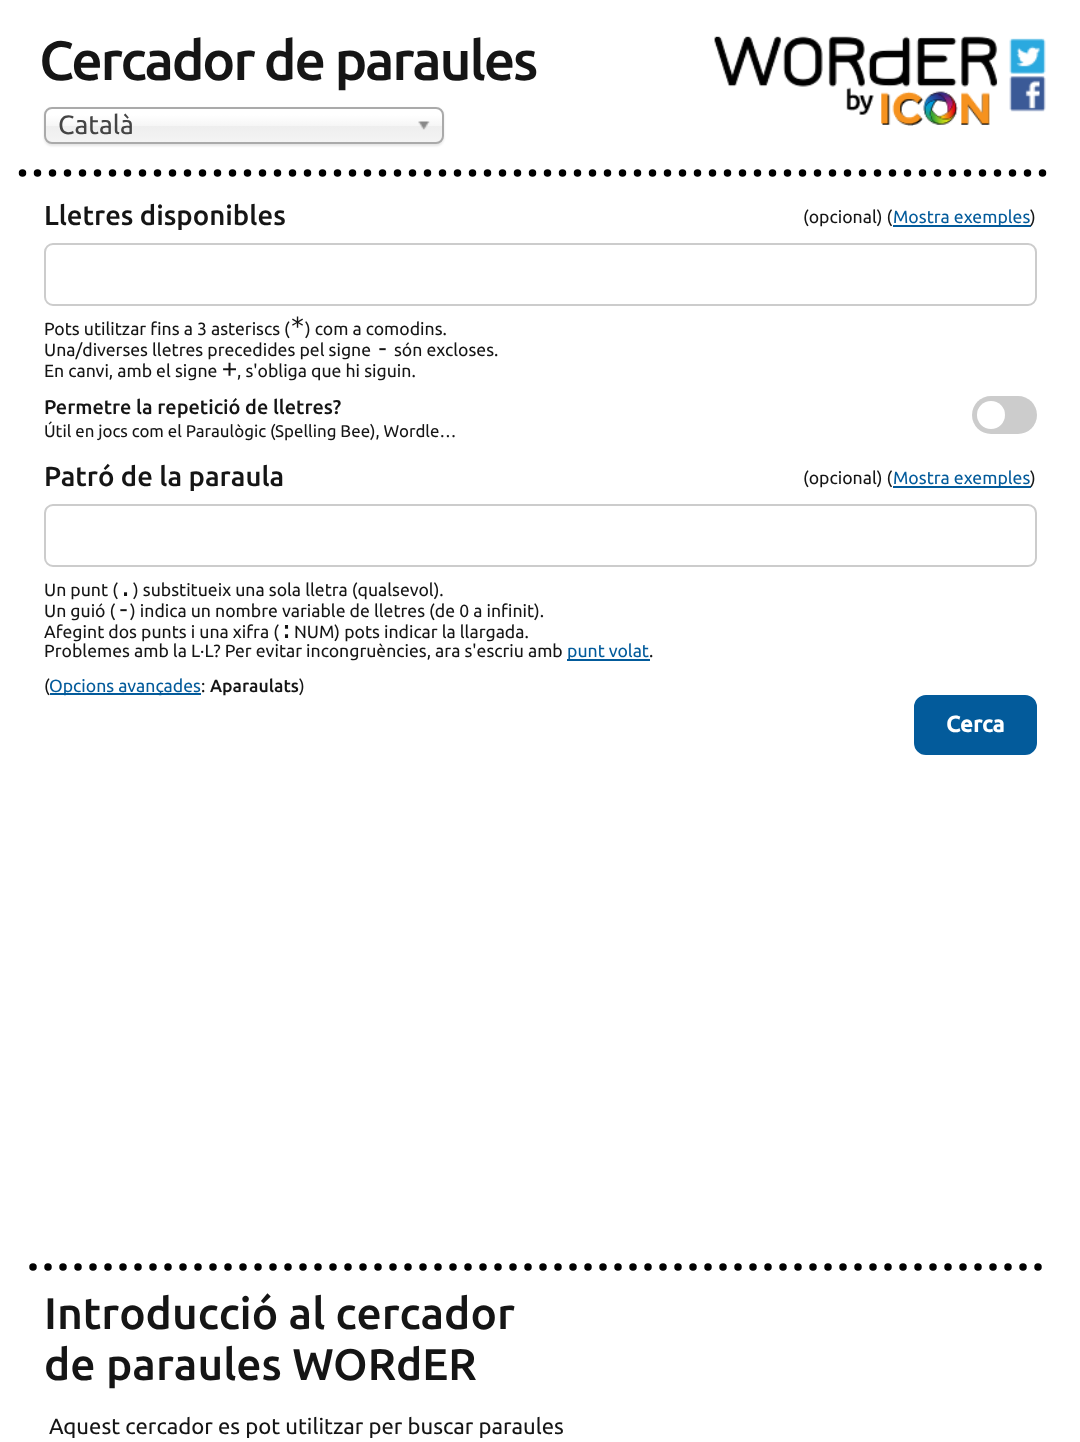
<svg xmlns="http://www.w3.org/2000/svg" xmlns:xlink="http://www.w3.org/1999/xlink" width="1080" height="1442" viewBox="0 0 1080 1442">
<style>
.cls-1{font:500 55.25px Ubuntu;letter-spacing:-2.25px;fill:#151515}
.cls-2{font:26.5px Ubuntu;fill:#444444}
.cls-3{font:500 27.5px Ubuntu;fill:#151515}
.cls-4{font:17.65px Ubuntu;fill:#151515}
.cls-5{font:17.65px Ubuntu;fill:#035b9b}
.cls-6{font:25px DejaVu Sans Mono;fill:#151515}
.cls-7{font:500 19.9px Ubuntu;fill:#151515}
.cls-8{font:16.9px Ubuntu;fill:#151515}
.cls-9{font:500 17.65px Ubuntu;fill:#151515}
.cls-10{font:bold 22.5px Ubuntu;fill:#ffffff}
.cls-11{font:500 44.25px Ubuntu;fill:#151515}
.cls-12{font:22.1px Ubuntu;fill:#151515}
</style>
<defs>
<linearGradient id="g1" gradientUnits="userSpaceOnUse" x1="244" y1="108" x2="244" y2="143"><stop offset="0.2" stop-color="#ffffff"/><stop offset="0.5" stop-color="#f6f6f6"/><stop offset="0.52" stop-color="#eeeeee"/><stop offset="1" stop-color="#f4f4f4"/></linearGradient>
</defs>
<rect width="100%" height="100%" fill="#ffffff"/>
<path fill="none" stroke="#000000" stroke-width="7.5" stroke-linecap="round" stroke-dasharray="0 15" d="M22.5 173H1057.5"/>
<image xlink:href="image0.png" x="714" y="36" width="284" height="90"/>
<image xlink:href="image1.png" x="1009" y="38" width="37" height="74"/>
<rect fill="#000000" fill-opacity="0.1" filter="blur(1px)" x="44" y="108" width="400" height="38" rx="8"/>
<rect fill="url(#g1)" x="45" y="108" width="398" height="35" rx="6"/>
<rect fill="none" stroke="#aaaaaa" stroke-width="2" x="45" y="108" width="398" height="35" rx="7"/>
<image xlink:href="image2.png" x="418" y="121" width="12" height="9"/>
<path fill="none" stroke="#000000" stroke-width="7.5" stroke-linecap="round" stroke-dasharray="0 15" d="M33 1267H1047"/>
<rect fill="#035b9b" x="893" y="225" width="138" height="2"/>
<rect fill="none" stroke="#cccccc" stroke-width="2" x="45" y="244" width="991" height="61" rx="8"/>
<rect fill="#cccccc" x="972" y="396" width="65" height="38" rx="19"/>
<circle fill="#ffffff" cx="991" cy="415" r="14"/>
<rect fill="#035b9b" x="893" y="486" width="138" height="2"/>
<rect fill="none" stroke="#cccccc" stroke-width="2" x="45" y="505" width="991" height="61" rx="8"/>
<rect fill="#035b9b" x="567" y="659" width="83" height="2"/>
<rect fill="#035b9b" x="50" y="693" width="151" height="2"/>
<rect fill="#035b9b" stroke="#035b9b" stroke-width="2" x="915" y="696" width="121" height="58" rx="11"/>
<text class="cls-1" x="39" y="80">Cercador de paraules</text>
<text class="cls-2" x="58" y="134">Català</text>
<text class="cls-3" x="44" y="225">Lletres disponibles</text>
<text class="cls-4" x="803" y="223">(opcional) (</text>
<text class="cls-5" x="893" y="223">Mostra exemples</text>
<text class="cls-4" x="1030" y="223">)</text>
<text class="cls-4" x="44" y="335">Pots utilitzar fins a 3 asteriscs (</text>
<text class="cls-6" x="290" y="335">*</text>
<text class="cls-4" x="305" y="335">) com a comodins.</text>
<text class="cls-4" x="44" y="356">Una/diverses lletres precedides pel signe</text>
<text class="cls-6" x="375" y="356">-</text>
<text class="cls-4" x="394" y="356">són excloses.</text>
<text class="cls-4" x="44" y="377">En canvi, amb el signe</text>
<text class="cls-6" x="222" y="377">+</text>
<text class="cls-4" x="237" y="377">, s'obliga que hi siguin.</text>
<text class="cls-7" x="44" y="414">Permetre la repetició de lletres?</text>
<text class="cls-8" x="44" y="437">Útil en jocs com el Paraulògic (Spelling Bee), Wordle…</text>
<text class="cls-3" x="44" y="486">Patró de la paraula</text>
<text class="cls-4" x="803" y="484">(opcional) (</text>
<text class="cls-5" x="893" y="484">Mostra exemples</text>
<text class="cls-4" x="1030" y="484">)</text>
<text class="cls-4" x="44" y="596">Un punt (</text>
<text class="cls-6" x="118" y="596">.</text>
<text class="cls-4" x="133" y="596">) substitueix una sola lletra (qualsevol).</text>
<text class="cls-4" x="44" y="617">Un guió (</text>
<text class="cls-6" x="116" y="617">-</text>
<text class="cls-4" x="130" y="617">) indica un nombre variable de lletres (de 0 a infinit).</text>
<text class="cls-4" x="44" y="638">Afegint dos punts i una xifra (</text>
<text class="cls-6" x="279" y="638">:</text>
<text class="cls-4" x="294" y="638">NUM) pots indicar la llargada.</text>
<text class="cls-4" x="44" y="657">Problemes amb la L·L? Per evitar incongruències, ara s'escriu amb</text>
<text class="cls-5" x="567" y="657">punt volat</text>
<text class="cls-4" x="649" y="657">.</text>
<text class="cls-4" x="44" y="692">(</text>
<text class="cls-5" x="49" y="692">Opcions avançades</text>
<text class="cls-4" x="201" y="692">:</text>
<text class="cls-9" x="210" y="692">Aparaulats</text>
<text class="cls-4" x="299" y="692">)</text>
<text class="cls-10" x="946" y="732">Cerca</text>
<text class="cls-11"><tspan x="44" y="1329">Introducció al cercador</tspan><tspan x="44" y="1380">de paraules WORdER</tspan></text>
<text class="cls-12" x="49" y="1434">Aquest cercador es pot utilitzar per buscar paraules</text>
</svg>
